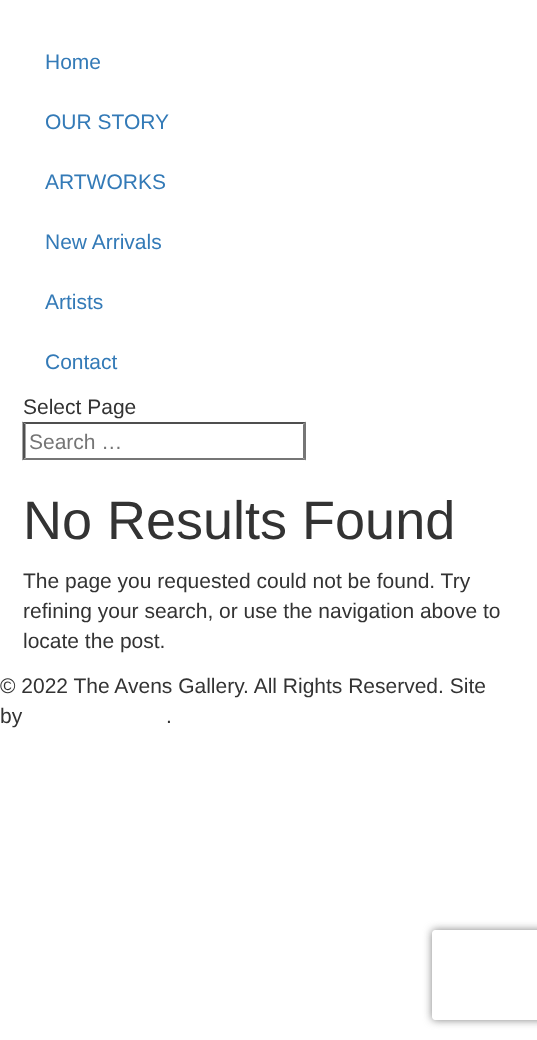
<svg xmlns="http://www.w3.org/2000/svg" xmlns:xlink="http://www.w3.org/1999/xlink" width="537" height="1040" viewBox="0 0 537 1040">
<style>
.cls-1{font:21px Liberation Sans;fill:#337ab7}
.cls-2{font:21px Liberation Sans;fill:#333333}
.cls-3{font:21px Liberation Sans;fill:#757575}
.cls-4{font:54px Liberation Sans;fill:#333333}
</style>
<defs>
<clipPath id="clip1"><path d="M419 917H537V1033H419ZM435 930H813C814.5 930 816 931.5 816 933V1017C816 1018.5 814.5 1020 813 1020H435C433.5 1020 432 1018.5 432 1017V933C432 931.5 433.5 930 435 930Z" clip-rule="evenodd"/></clipPath>
</defs>
<rect width="100%" height="100%" fill="#ffffff"/>
<path fill="#4f4f4f" d="M22 422H306L303 424H26Z"/>
<path fill="#767676" d="M306 421.5V460.5L303 457.5V424.5Z"/>
<path fill="#767676" d="M306 460H22L26 458H303Z"/>
<path fill="#4f4f4f" d="M22.5 460.5V421.5L25.5 424.5V457.5Z"/>
<g clip-path="url(#clip1)">
<rect fill="#808080" filter="blur(4px)" x="432" y="930" width="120" height="90" rx="3"/>
</g>
<text class="cls-1" x="45" y="69">Home</text>
<text class="cls-1" x="45" y="129">OUR STORY</text>
<text class="cls-1" x="45" y="189">ARTWORKS</text>
<text class="cls-1" x="45" y="249">New Arrivals</text>
<text class="cls-1" x="45" y="309">Artists</text>
<text class="cls-1" x="45" y="369">Contact</text>
<text class="cls-2" x="23" y="414">Select Page</text>
<text class="cls-3" x="29" y="449">Search …</text>
<text class="cls-4" x="23" y="539">No Results Found</text>
<text class="cls-2"><tspan x="23" y="588">The page you requested could not be found. Try</tspan><tspan x="23" y="618">refining your search, or use the navigation above to</tspan><tspan x="23" y="648">locate the post.</tspan></text>
<text class="cls-2"><tspan x="0" y="693">© 2022 The Avens Gallery. All Rights Reserved. Site</tspan><tspan x="0" y="723">by</tspan></text>
<text class="cls-2" x="166" y="723">.</text>
</svg>
